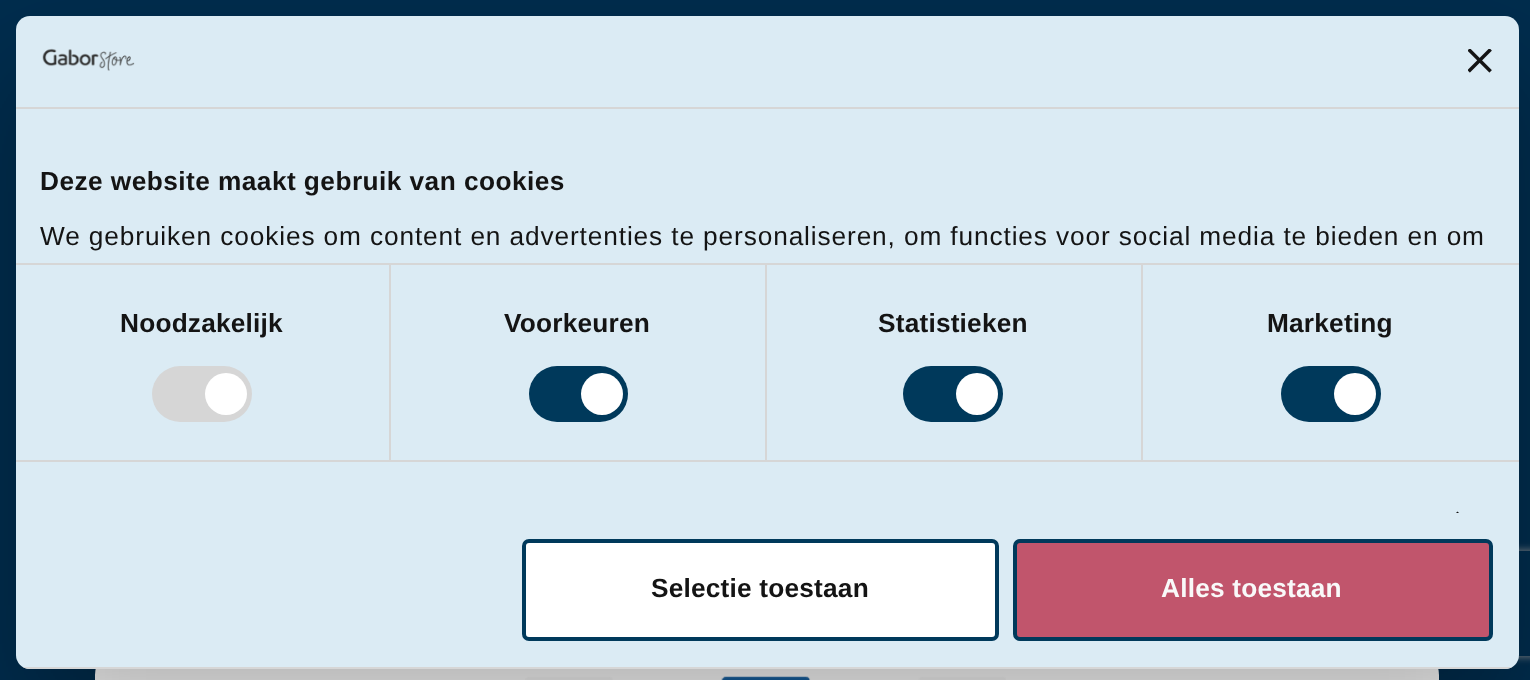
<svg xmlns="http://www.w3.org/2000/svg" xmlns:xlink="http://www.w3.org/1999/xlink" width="1530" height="680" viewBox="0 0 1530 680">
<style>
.cls-1{font:bold 26.25px Liberation Sans;letter-spacing:0.45px;fill:#141414}
.cls-2{font:26.25px Liberation Sans;letter-spacing:0.88px;fill:#141414}
.cls-3{font:bold 26.25px Liberation Sans;letter-spacing:0.2px;fill:#141414}
.cls-4{font:bold 26.25px Liberation Sans;letter-spacing:0.2px;fill:#f9f9f9}
</style>
<defs>
<clipPath id="clip1"><path d="M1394 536H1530V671H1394ZM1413 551H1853C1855 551 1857 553 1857 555V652C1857 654 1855 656 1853 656H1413C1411 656 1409 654 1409 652V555C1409 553 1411 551 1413 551Z" clip-rule="evenodd"/></clipPath>
<clipPath id="clip2"><rect x="16" y="109" width="1503" height="404"/></clipPath>
<clipPath id="clip3"><rect x="16" y="16" width="1503" height="653" rx="14"/></clipPath>
</defs>
<rect width="100%" height="100%" fill="#002d4e"/>
<rect fill="#ffffff" x="95" y="649" width="1344" height="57" rx="26"/>
<image xlink:href="image2.png" x="525" y="676" width="481" height="4"/>
<rect fill="#000000" fill-opacity="0.3" filter="blur(59.5px)" x="16" y="72" width="1503" height="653" rx="14"/>
<g clip-path="url(#clip1)">
<rect fill="#808080" filter="blur(4.5px)" x="1409" y="551" width="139" height="105" rx="4"/>
</g>
<rect fill="#dbebf4" x="16" y="16" width="1503" height="653" rx="14"/>
<rect fill="#d6d6d6" x="16" y="107" width="1503" height="2"/>
<image xlink:href="image0.png" x="42" y="48" width="93" height="23"/>
<image xlink:href="image1.png" x="1468" y="49" width="24" height="24"/>
<rect fill="#d6d6d6" x="389" y="264" width="2" height="196"/>
<rect fill="#d6d6d6" x="765" y="264" width="2" height="196"/>
<rect fill="#d6d6d6" x="1141" y="264" width="2" height="196"/>
<rect fill="#d6d6d6" x="16" y="263" width="1503" height="2"/>
<rect fill="#d6d6d6" x="16" y="460" width="1503" height="2"/>
<rect fill="#d6d6d6" x="152" y="366" width="100" height="56" rx="28"/>
<circle fill="#ffffff" cx="226" cy="394" r="21"/>
<rect fill="#00395b" x="529" y="366" width="99" height="56" rx="28"/>
<circle fill="#ffffff" cx="602" cy="394" r="21"/>
<rect fill="#00395b" x="903" y="366" width="100" height="56" rx="28"/>
<circle fill="#ffffff" cx="977" cy="394" r="21"/>
<rect fill="#00395b" x="1281" y="366" width="100" height="56" rx="28"/>
<circle fill="#ffffff" cx="1355" cy="394" r="21"/>
<g clip-path="url(#clip2)">
<path fill="#141414" d="M1457.5 511.5L1468 522L1465.5 524.5L1455 514Z"/>
</g>
<g clip-path="url(#clip3)">
<rect fill="#d6d6d6" x="16" y="667" width="1503" height="2"/>
</g>
<rect fill="#ffffff" stroke="#00395b" stroke-width="4" x="524" y="541" width="473" height="98" rx="5"/>
<rect fill="#c1556c" stroke="#00395b" stroke-width="4" x="1015" y="541" width="476" height="98" rx="5"/>
<text class="cls-1" x="40" y="190">Deze website maakt gebruik van cookies</text>
<text class="cls-2" x="40" y="245">We gebruiken cookies om content en advertenties te personaliseren, om functies voor social media te bieden en om</text>
<text class="cls-3" x="120" y="332">Noodzakelijk</text>
<text class="cls-3" x="504" y="332">Voorkeuren</text>
<text class="cls-3" x="878" y="332">Statistieken</text>
<text class="cls-3" x="1267" y="332">Marketing</text>
<text class="cls-3" x="651" y="597">Selectie toestaan</text>
<text class="cls-4" x="1161" y="597">Alles toestaan</text>
</svg>
